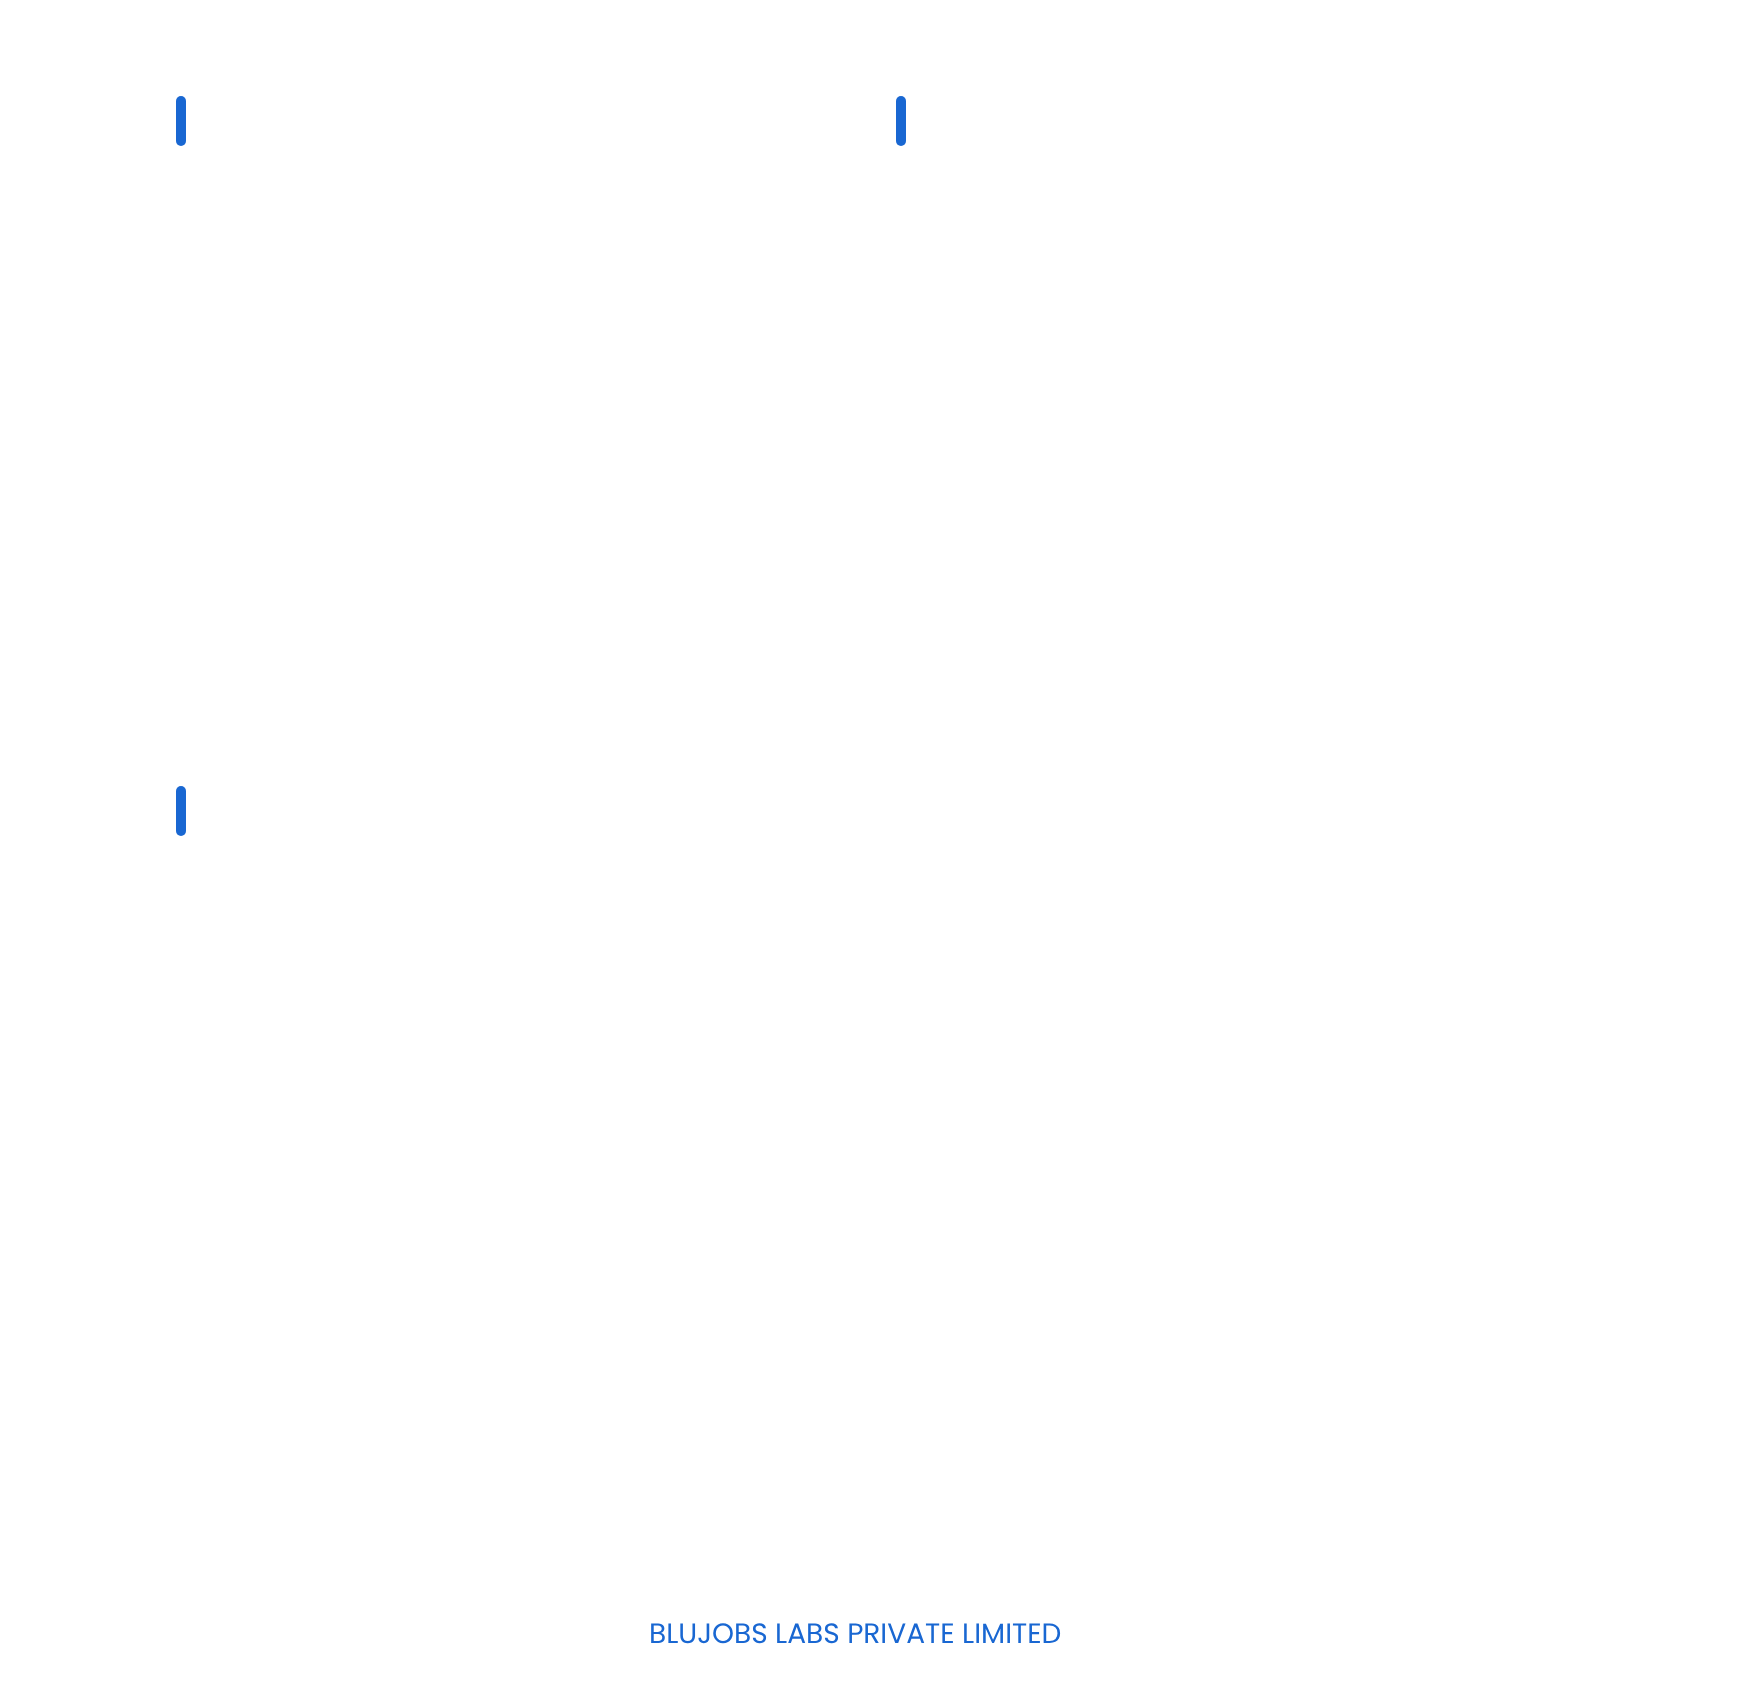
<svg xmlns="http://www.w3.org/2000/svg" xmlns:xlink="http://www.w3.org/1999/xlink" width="1741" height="1707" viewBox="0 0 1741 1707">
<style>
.cls-1{font:28px Poppins;fill:#1967d2}
</style>
<rect width="100%" height="100%" fill="#ffffff"/>
<rect fill="#1967d2" x="176" y="96" width="10" height="50" rx="5"/>
<rect fill="#1967d2" x="896" y="96" width="10" height="50" rx="5"/>
<rect fill="#1967d2" x="176" y="786" width="10" height="50" rx="5"/>
<text class="cls-1" x="649" y="1643">BLUJOBS LABS PRIVATE LIMITED</text>
</svg>
